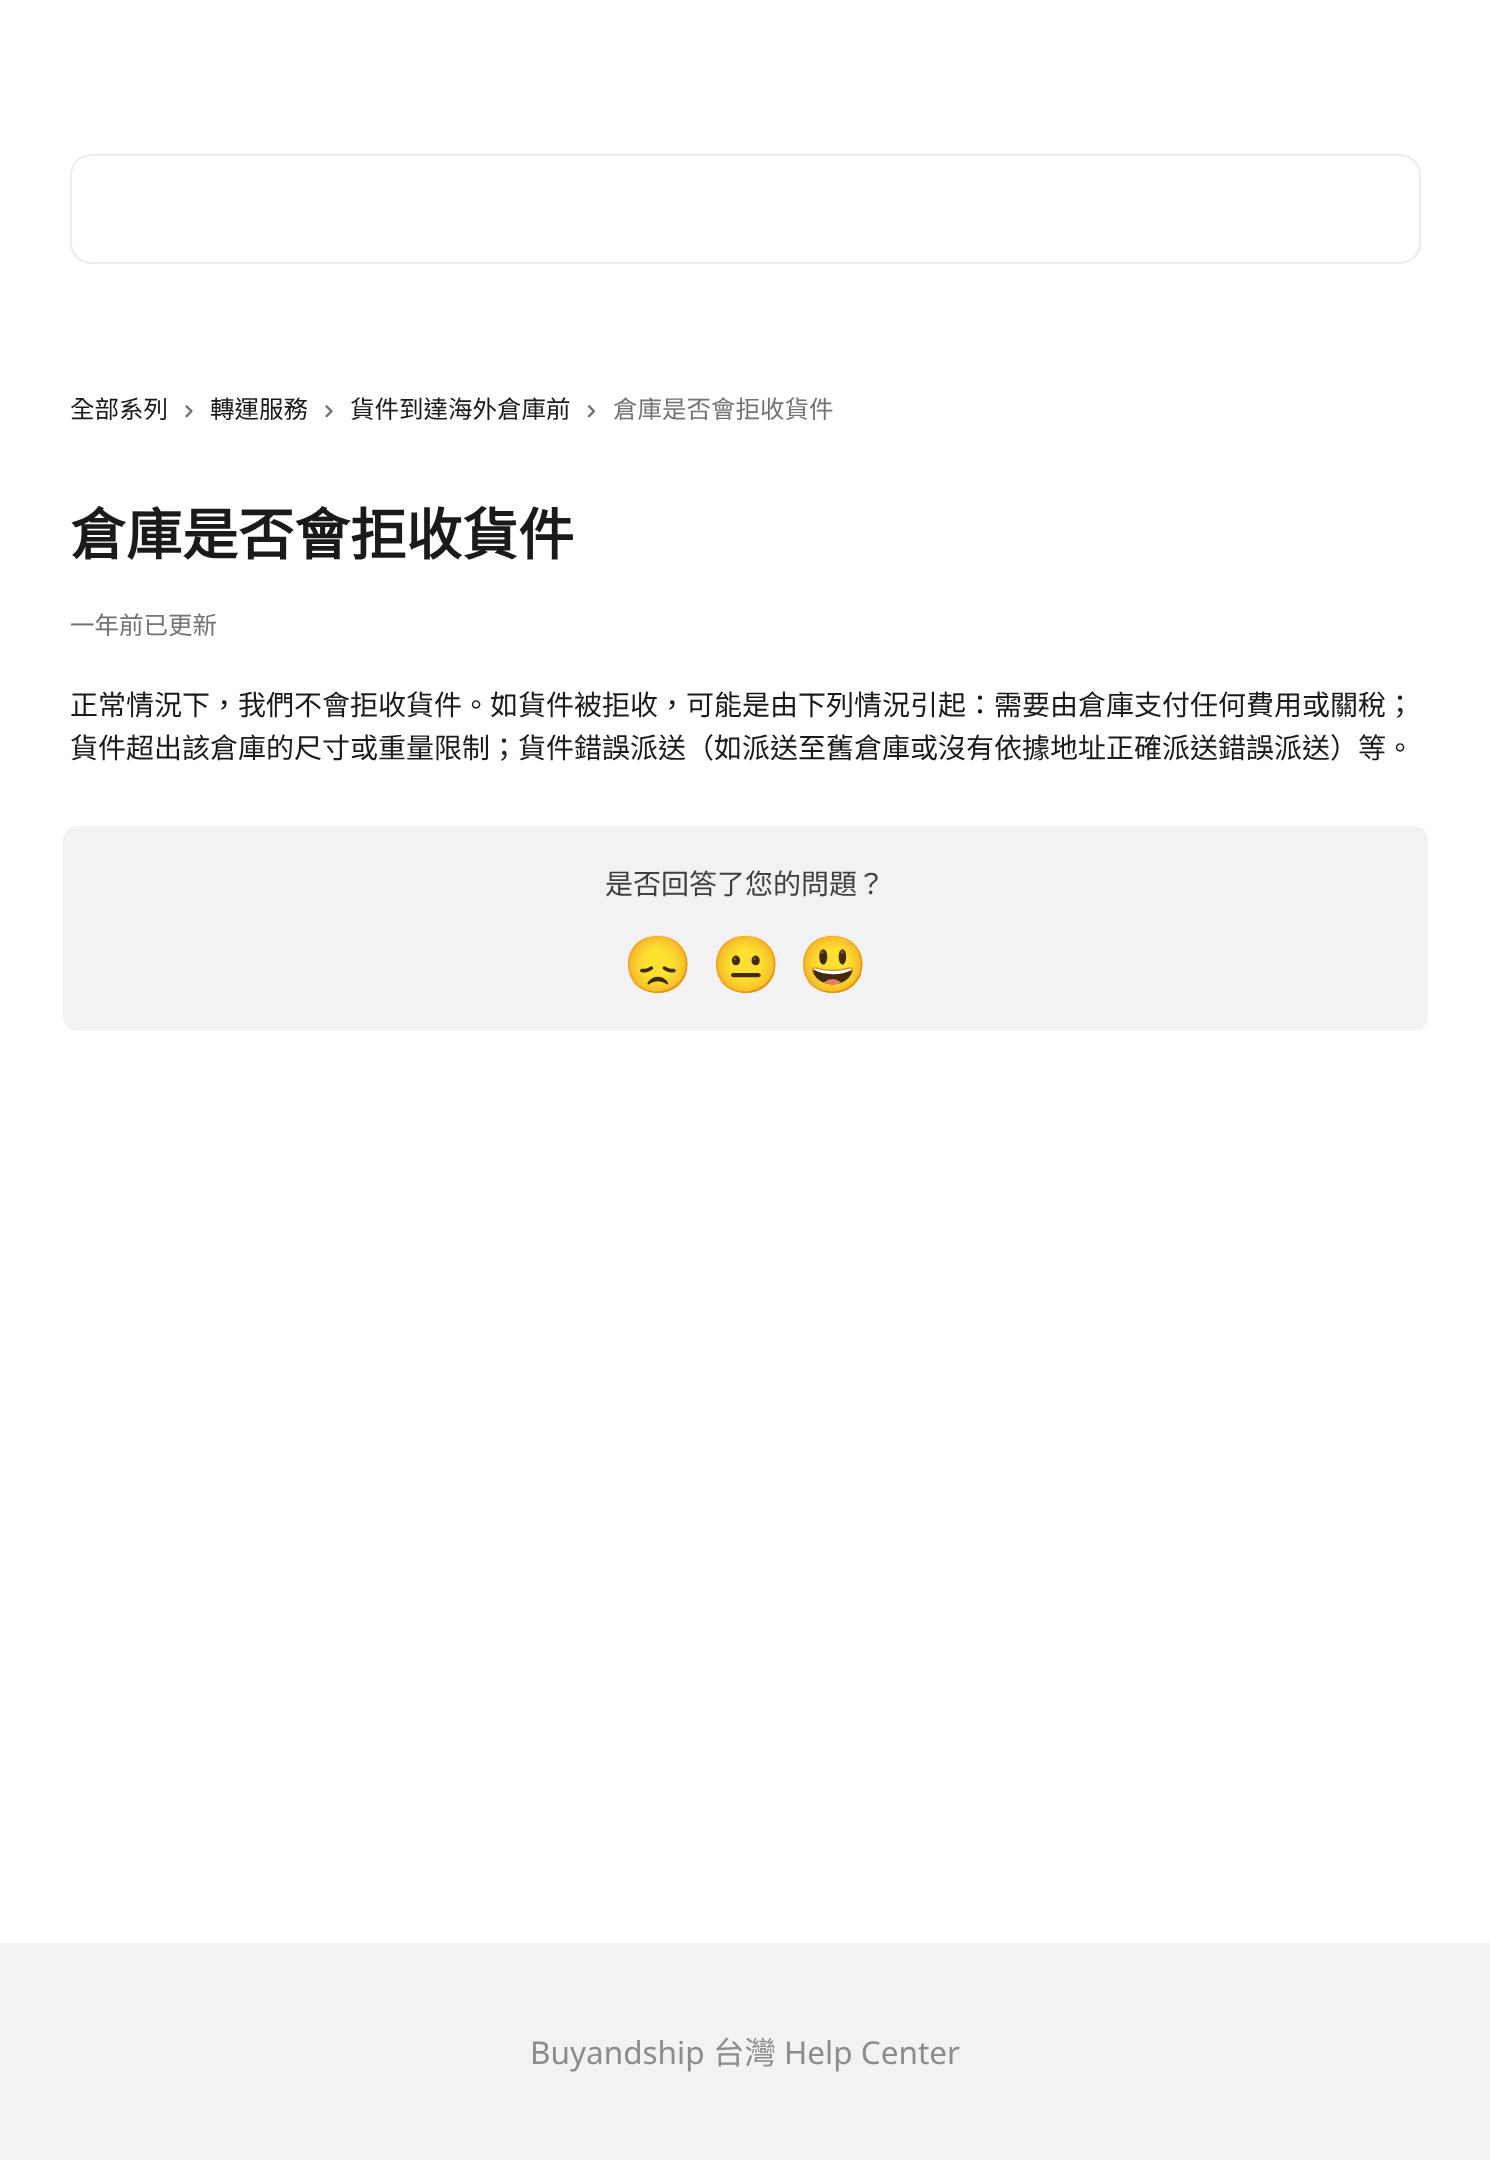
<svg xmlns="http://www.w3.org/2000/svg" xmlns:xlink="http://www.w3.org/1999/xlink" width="1490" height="2160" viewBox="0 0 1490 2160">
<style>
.cls-1{font:24.5px Noto Sans CJK TC;fill:#1a1a1a}
.cls-2{font:24.5px Noto Sans CJK TC;fill:#737373}
.cls-3{font:bold 56px Noto Sans CJK TC;fill:#1a1a1a}
.cls-4{font:28px Noto Sans CJK TC;fill:#1a1a1a}
.cls-5{font:28px Noto Sans CJK TC;fill:#404040}
.cls-6{font:56px Noto Color Emoji;fill:#404040}
.cls-7{font:31.5px Noto Sans;fill:#8c8c8c}
.cls-8{font:31.5px Noto Sans CJK TC;fill:#8c8c8c}
</style>
<rect width="100%" height="100%" fill="#ffffff"/>
<rect fill="none" stroke="#000000" stroke-opacity="0.08" stroke-width="2" x="71" y="155" width="1349" height="108" rx="20"/>
<image xlink:href="image0.png" x="185" y="405" width="8" height="13"/>
<image xlink:href="image0.png" x="325" y="405" width="8" height="13"/>
<image xlink:href="image1.png" x="587" y="405" width="9" height="13"/>
<rect fill="#f2f2f2" x="63" y="826" width="1365" height="205" rx="14"/>
<rect fill="#f2f2f2" x="0" y="1943" width="1490" height="217"/>
<text class="cls-1" x="70" y="418">全部系列</text>
<text class="cls-1" x="210" y="418">轉運服務</text>
<text class="cls-1" x="350" y="418">貨件到達海外倉庫前</text>
<text class="cls-2" x="613" y="418">倉庫是否會拒收貨件</text>
<text class="cls-3" x="70" y="555">倉庫是否會拒收貨件</text>
<text class="cls-2" x="70" y="634">一年前已更新</text>
<text class="cls-4"><tspan x="70" y="715">正常情況下，我們不會拒收貨件。如貨件被拒收，可能是由下列情況引起：需要由倉庫支付任何費用或關稅；</tspan><tspan x="70" y="758">貨件超出該倉庫的尺寸或重量限制；貨件錯誤派送（如派送至舊倉庫或沒有依據地址正確派送錯誤派送）等。</tspan></text>
<text class="cls-5" x="605" y="894">是否回答了您的問題？</text>
<text class="cls-6" x="623" y="984">😞</text>
<text class="cls-6" x="711" y="984">😐</text>
<text class="cls-6" x="798" y="984">😃</text>
<text class="cls-7" x="530" y="2064">Buyandship</text>
<text class="cls-8" x="713" y="2064">台灣</text>
<text class="cls-7" x="784" y="2064">Help Center</text>
</svg>
